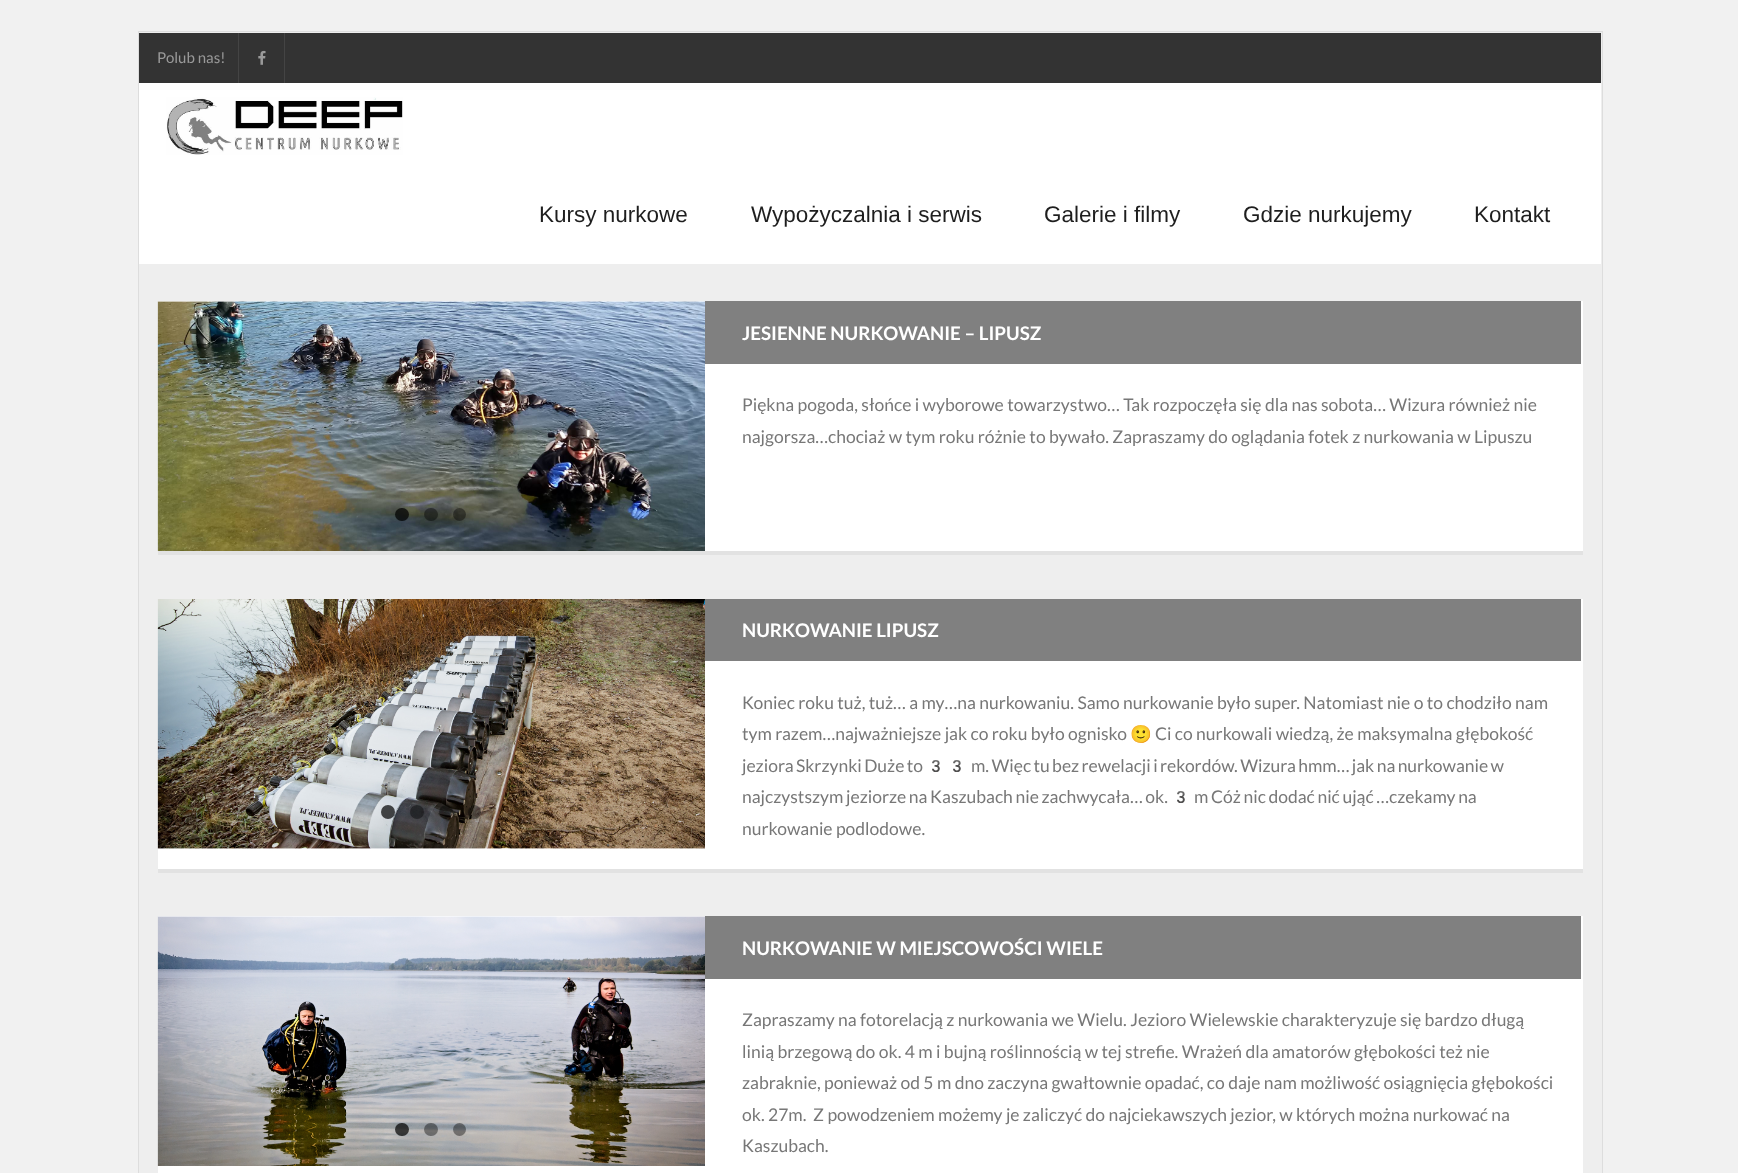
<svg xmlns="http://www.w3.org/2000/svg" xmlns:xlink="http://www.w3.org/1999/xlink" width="1738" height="1173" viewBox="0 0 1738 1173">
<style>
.cls-1{font:15px Lato;fill:#999999}
.cls-2{font:22.5px Liberation Sans;fill:#1e1e1e}
.cls-3{font:bold 18.75px Lato;fill:#ffffff}
.cls-4{font:17.5px Lato;fill:#777777}
.cls-5{font:17.5px Noto Color Emoji;fill:#777777}
</style>
<rect width="100%" height="100%" fill="#f1f1f1"/>
<rect fill="#eeeeee" stroke="#dddddd" x="138.5" y="31.5" width="1464" height="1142"/>
<rect fill="#333333" x="139" y="33" width="1462" height="50"/>
<rect fill="#444444" x="284" y="33" width="1" height="50"/>
<rect fill="#444444" x="238" y="33" width="1" height="50"/>
<image xlink:href="image0.png" x="258" y="50" width="8" height="15"/>
<rect fill="#ffffff" x="139" y="83" width="1462" height="181"/>
<image xlink:href="image1.png" x="166" y="97" width="237" height="58"/>
<rect fill="#ffffff" x="705" y="301" width="878" height="250"/>
<rect fill="#e2e2e2" x="158" y="551" width="1425" height="4"/>
<path fill="#808080" d="M241 301V364H1081H741V301H1081Z"/>
<rect fill="#ffffff" x="158" y="301" width="547" height="1"/>
<image xlink:href="image2.png" x="157" y="301" width="548" height="250"/>
<rect fill="#000000" fill-opacity="0.7" x="395" y="508" width="14" height="13" rx="6.5"/>
<rect fill="#000000" fill-opacity="0.4" x="424" y="508" width="14" height="13" rx="6.5"/>
<circle fill="#000000" fill-opacity="0.4" cx="459.5" cy="514.5" r="6.5"/>
<rect fill="#808080" x="741" y="301" width="840" height="63"/>
<rect fill="#ffffff" x="158" y="599" width="1425" height="270"/>
<rect fill="#e2e2e2" x="158" y="869" width="1425" height="4"/>
<image xlink:href="image3.png" x="157" y="599" width="548" height="250"/>
<circle fill="#000000" fill-opacity="0.7" cx="388" cy="812" r="7"/>
<circle fill="#000000" fill-opacity="0.4" cx="417" cy="812" r="7"/>
<circle fill="#000000" fill-opacity="0.4" cx="446" cy="812" r="7"/>
<rect fill="#000000" fill-opacity="0.4" x="468" y="805" width="13" height="14" rx="6.5"/>
<rect fill="#808080" x="705" y="599" width="876" height="62"/>
<rect fill="#ffffff" x="158" y="916" width="1425" height="257"/>
<path fill="#808080" d="M241 916V979H1081H741V916H1081Z"/>
<rect fill="#ffffff" x="241" y="916" width="464" height="1"/>
<image xlink:href="image4.png" x="157" y="916" width="548" height="250"/>
<rect fill="#000000" fill-opacity="0.7" x="395" y="1123" width="14" height="13" rx="6.5"/>
<rect fill="#000000" fill-opacity="0.4" x="424" y="1123" width="14" height="13" rx="6.5"/>
<circle fill="#000000" fill-opacity="0.4" cx="459.5" cy="1129.5" r="6.5"/>
<rect fill="#808080" x="741" y="916" width="840" height="63"/>
<text class="cls-1" x="157" y="63">Polub nas!</text>
<text class="cls-2" x="539" y="222">Kursy nurkowe</text>
<text class="cls-2" x="751" y="222">Wypożyczalnia i serwis</text>
<text class="cls-2" x="1044" y="222">Galerie i filmy</text>
<text class="cls-2" x="1243" y="222">Gdzie nurkujemy</text>
<text class="cls-2" x="1474" y="222">Kontakt</text>
<text class="cls-3" x="742" y="340">JESIENNE NURKOWANIE – LIPUSZ</text>
<text class="cls-4"><tspan x="742" y="411">Piękna pogoda, słońce i wyborowe towarzystwo… Tak rozpoczęła się dla nas sobota… Wizura również nie</tspan><tspan x="742" y="443">najgorsza…chociaż w tym roku różnie to bywało. Zapraszamy do oglądania fotek z nurkowania w Lipuszu</tspan></text>
<text class="cls-3" x="742" y="637">NURKOWANIE LIPUSZ</text>
<text class="cls-4"><tspan x="742" y="709">Koniec roku tuż, tuż… a my…na nurkowaniu. Samo nurkowanie było super. Natomiast nie o to chodziło nam</tspan><tspan x="742" y="740">tym razem…najważniejsze jak co roku było ognisko</tspan></text>
<text class="cls-5" x="1130" y="740">🙂</text>
<text class="cls-4" x="1155" y="740">Ci co nurkowali wiedzą, że maksymalna głębokość</text>
<text class="cls-4" x="742" y="772" word-spacing="-1">jeziora Skrzynki Duże to</text>
<text class="cls-5" x="925" y="772">33</text>
<text class="cls-4" x="971" y="772" word-spacing="-1">m. Więc tu bez rewelacji i rekordów. Wizura hmm… jak na nurkowanie w</text>
<text class="cls-4" x="742" y="803" word-spacing="-0.75">najczystszym jeziorze na Kaszubach nie zachwycała… ok.</text>
<text class="cls-5" x="1170" y="803">3</text>
<text class="cls-4" x="1194" y="803" word-spacing="-0.75">m Cóż nic dodać nić ująć …czekamy na</text>
<text class="cls-4" x="742" y="835">nurkowanie podlodowe.</text>
<text class="cls-3" x="742" y="955">NURKOWANIE W MIEJSCOWOŚCI WIELE</text>
<text class="cls-4" xml:space="preserve"><tspan x="742" y="1026">Zapraszamy na fotorelacją z nurkowania we Wielu. Jezioro Wielewskie charakteryzuje się bardzo długą</tspan><tspan x="742" y="1058">linią brzegową do ok. 4 m i bujną roślinnością w tej strefie. Wrażeń dla amatorów głębokości też nie</tspan><tspan x="742" y="1089">zabraknie, ponieważ od 5 m dno zaczyna gwałtownie opadać, co daje nam możliwość osiągnięcia głębokości</tspan><tspan x="742" y="1121">ok. 27m.  Z powodzeniem możemy je zaliczyć do najciekawszych jezior, w których można nurkować na</tspan><tspan x="742" y="1152">Kaszubach.</tspan></text>
</svg>
